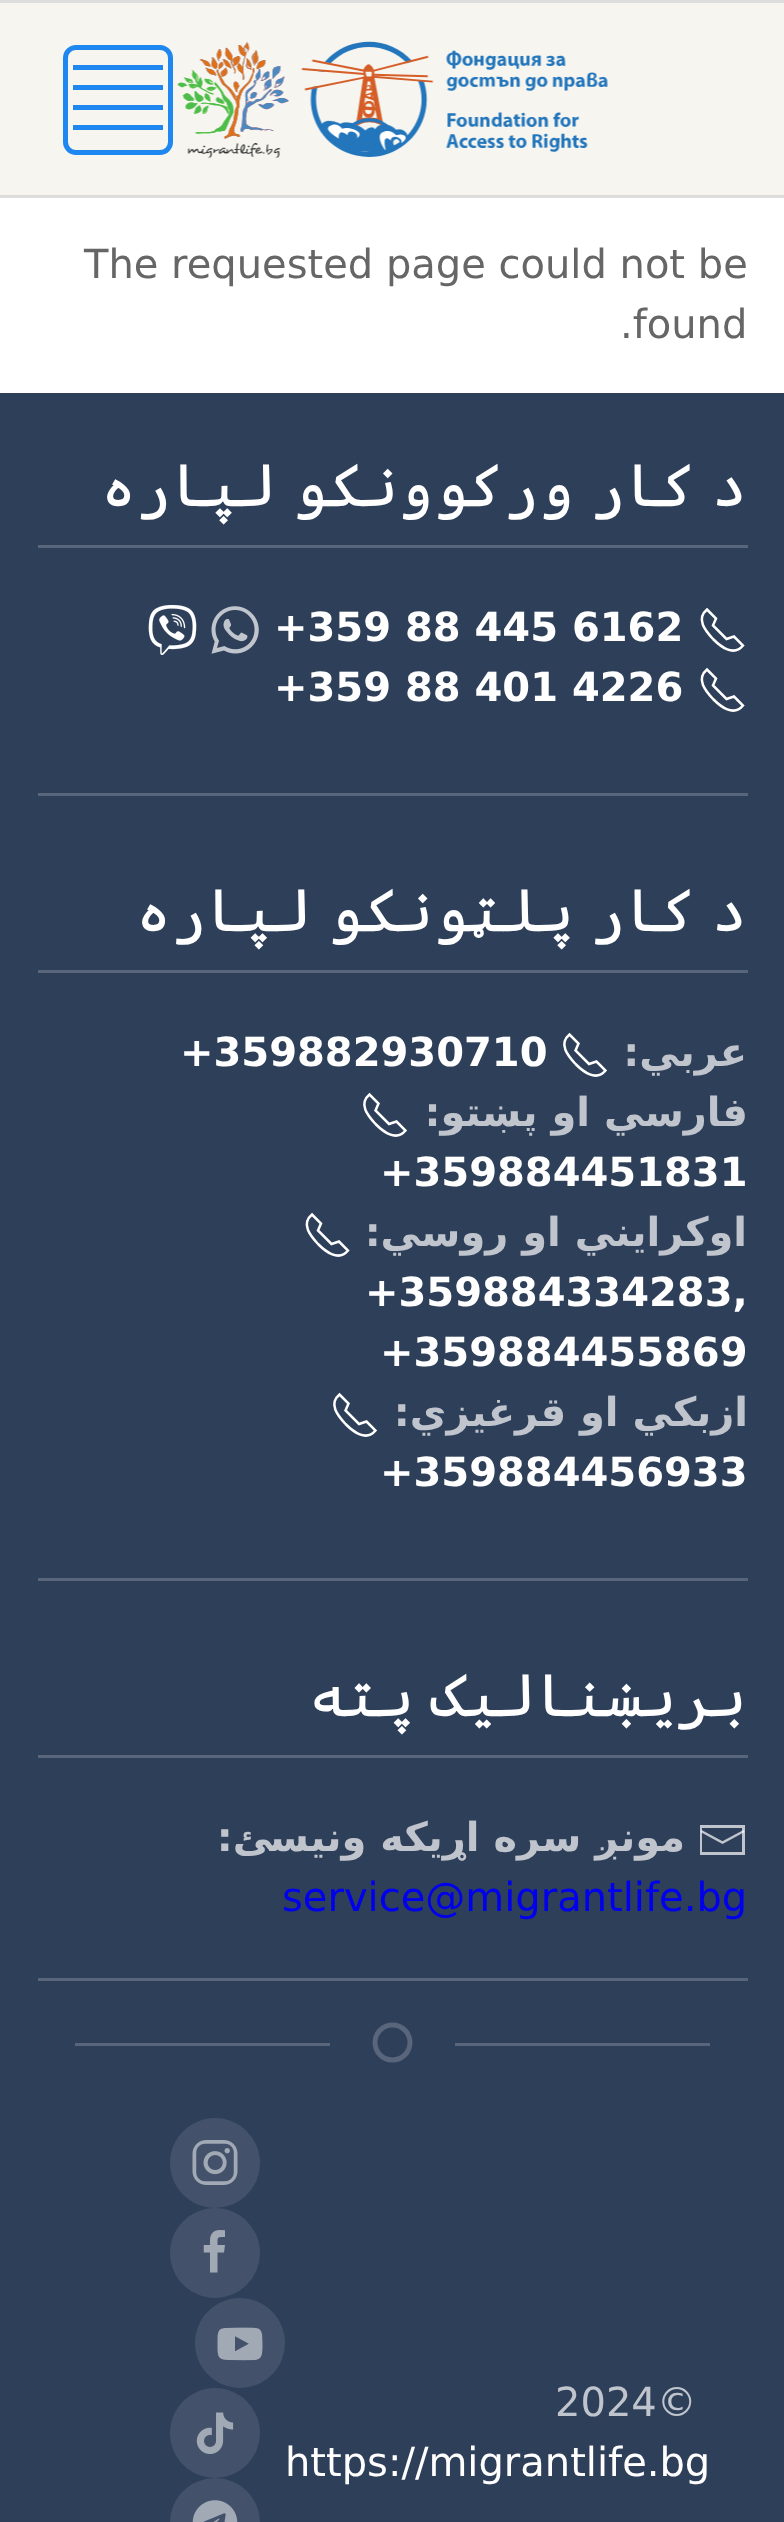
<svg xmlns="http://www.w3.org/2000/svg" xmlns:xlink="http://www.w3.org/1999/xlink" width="784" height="2522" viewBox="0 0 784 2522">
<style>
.cls-1{font:40px DejaVu Sans;fill:#666666}
.cls-2{font:60px Cascadia Code;direction:rtl;fill:#ffffff}
.cls-3{font:bold 40px DejaVu Sans;fill:#ffffff}
.cls-4{font:bold 40px DejaVu Sans;direction:rtl;fill:#c0c5cd}
.cls-5{font:40px DejaVu Sans;fill:#0000ee}
.cls-6{font:40px DejaVu Sans;fill:#c0c5cd}
.cls-7{font:40px DejaVu Sans;fill:#ffffff}
</style>
<rect width="100%" height="100%" fill="#ffffff"/>
<rect fill="#f6f5ef" x="0" y="3" width="784" height="192"/>
<rect fill="#dddddd" x="0" y="0" width="784" height="3"/>
<rect fill="#dddddd" x="0" y="195" width="784" height="3"/>
<rect fill="none" stroke="#1e87f0" stroke-width="5" x="65.5" y="47.5" width="105" height="105" rx="10.5"/>
<rect fill="#1e87f0" x="73" y="65" width="90" height="5"/>
<rect fill="#1e87f0" x="73" y="85" width="90" height="5"/>
<rect fill="#1e87f0" x="73" y="105" width="90" height="5"/>
<rect fill="#1e87f0" x="73" y="125" width="90" height="5"/>
<image xlink:href="image0.png" x="177" y="41" width="431" height="117"/>
<rect fill="#2e3f59" x="0" y="393" width="784" height="2129"/>
<rect fill="#58657a" x="38" y="545" width="710" height="3"/>
<image xlink:href="image1.png" x="148" y="605" width="49" height="50"/>
<image xlink:href="image2.png" x="211" y="606" width="48" height="48"/>
<path fill="none" stroke="#ffffff" stroke-width="2.5" d="M713 639C720.5 646.5 733.5 657 743 645.5L734 636.5L726.5 639L713 625.5L716 618.5L707 609.5C695.5 619 705.5 631 713 639"/>
<path fill="none" stroke="#ffffff" stroke-width="2.5" d="M713 699C720.5 706.5 733.5 717 743 705.5L734 696.5L726.5 699L713 685.5L716 678.5L707 669.5C695.5 679 705.5 691 713 699"/>
<rect fill="#58657a" x="38" y="793" width="710" height="3"/>
<rect fill="#58657a" x="38" y="970" width="710" height="3"/>
<path fill="none" stroke="#ffffff" stroke-width="2.5" d="M575.5 1064C583 1071.5 596 1082 605.5 1070.5L596.5 1061.5L589 1064L575.5 1050.5L578.5 1043.5L569.5 1034.5C558 1044 568 1056 575.5 1064"/>
<path fill="none" stroke="#ffffff" stroke-width="2.5" d="M375.5 1124C383 1131.5 396 1142 405.5 1130.5L396.5 1121.5L389 1124L375.5 1110.5L378.5 1103.5L369.5 1094.5C358 1104 368 1116 375.5 1124"/>
<path fill="none" stroke="#ffffff" stroke-width="2.5" d="M318 1244C325.5 1251.5 338.5 1262 348 1250.5L339 1241.5L331.5 1244L318 1230.5L321 1223.5L312 1214.5C300.5 1224 310.5 1236 318 1244"/>
<path fill="none" stroke="#ffffff" stroke-width="2.5" d="M345.5 1424C353 1431.5 366 1442 375.5 1430.5L366.5 1421.5L359 1424L345.5 1410.5L348.5 1403.5L339.5 1394.5C328 1404 338 1416 345.5 1424"/>
<rect fill="#58657a" x="38" y="1578" width="710" height="3"/>
<rect fill="#58657a" x="38" y="1755" width="710" height="3"/>
<path fill="none" stroke="#c0c5cd" stroke-width="2.5" d="M701 1831L722.5 1842.5L744 1831"/>
<path fill="#ffffff" fill-opacity="0.7" d="M700 1825V1855H745V1825ZM742 1852H702V1828H742Z"/>
<rect fill="#58657a" x="38" y="1978" width="710" height="3"/>
<circle fill="none" stroke="#58657a" stroke-width="5" cx="392.5" cy="2042.5" r="17.5"/>
<rect fill="#58657a" x="75" y="2043" width="255" height="3"/>
<rect fill="#58657a" x="455" y="2043" width="255" height="3"/>
<circle fill="#43526a" cx="215" cy="2163" r="45"/>
<image xlink:href="image3.png" x="192" y="2140" width="46" height="45"/>
<circle fill="#43526a" cx="215" cy="2253" r="45"/>
<image xlink:href="image4.png" x="203" y="2230" width="22" height="43"/>
<circle fill="#43526a" cx="240" cy="2343" r="45"/>
<image xlink:href="image5.png" x="217" y="2327" width="46" height="34"/>
<circle fill="#43526a" cx="215" cy="2433" r="45"/>
<image xlink:href="image6.png" x="196" y="2412" width="38" height="42"/>
<rect fill="#43526a" x="170" y="2478" width="90" height="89" rx="45"/>
<image xlink:href="image7.png" x="192" y="2500" width="46" height="22"/>
<text class="cls-1" x="84" y="278">The requested page could not be</text>
<text class="cls-1" x="620" y="338">.found</text>
<text class="cls-2" x="747" y="506" word-spacing="-19">د کار ورکوونکو لپاره</text>
<text class="cls-3"><tspan x="274" y="641">+359 88 445 6162</tspan><tspan x="274" y="701">+359 88 401 4226</tspan></text>
<text class="cls-2" x="747" y="931" word-spacing="-19">د کار پلټونکو لپاره</text>
<text class="cls-3" x="180" y="1066">+359882930710</text>
<text class="cls-4" x="747" y="1066">عربي:</text>
<text class="cls-4" x="748" y="1126">فارسي او پښتو:</text>
<text class="cls-3" x="380" y="1186">+359884451831</text>
<text class="cls-4" x="747" y="1246">اوکرایني او روسي:</text>
<text class="cls-3" x="365" y="1306">+359884334283,</text>
<text class="cls-3" x="380" y="1366">+359884455869</text>
<text class="cls-4" x="748" y="1426">ازبکي او قرغيزي:</text>
<text class="cls-3" x="380" y="1486">+359884456933</text>
<text class="cls-2" x="747" y="1716" word-spacing="-19">بریښنالیک پته</text>
<text class="cls-4" x="685" y="1851">مونږ سره اړیکه ونیسئ:</text>
<text class="cls-5" x="282" y="1911">service@migrantlife.bg</text>
<text class="cls-6" x="555" y="2416">2024©</text>
<text class="cls-7" x="285" y="2476">https://migrantlife.bg</text>
</svg>
